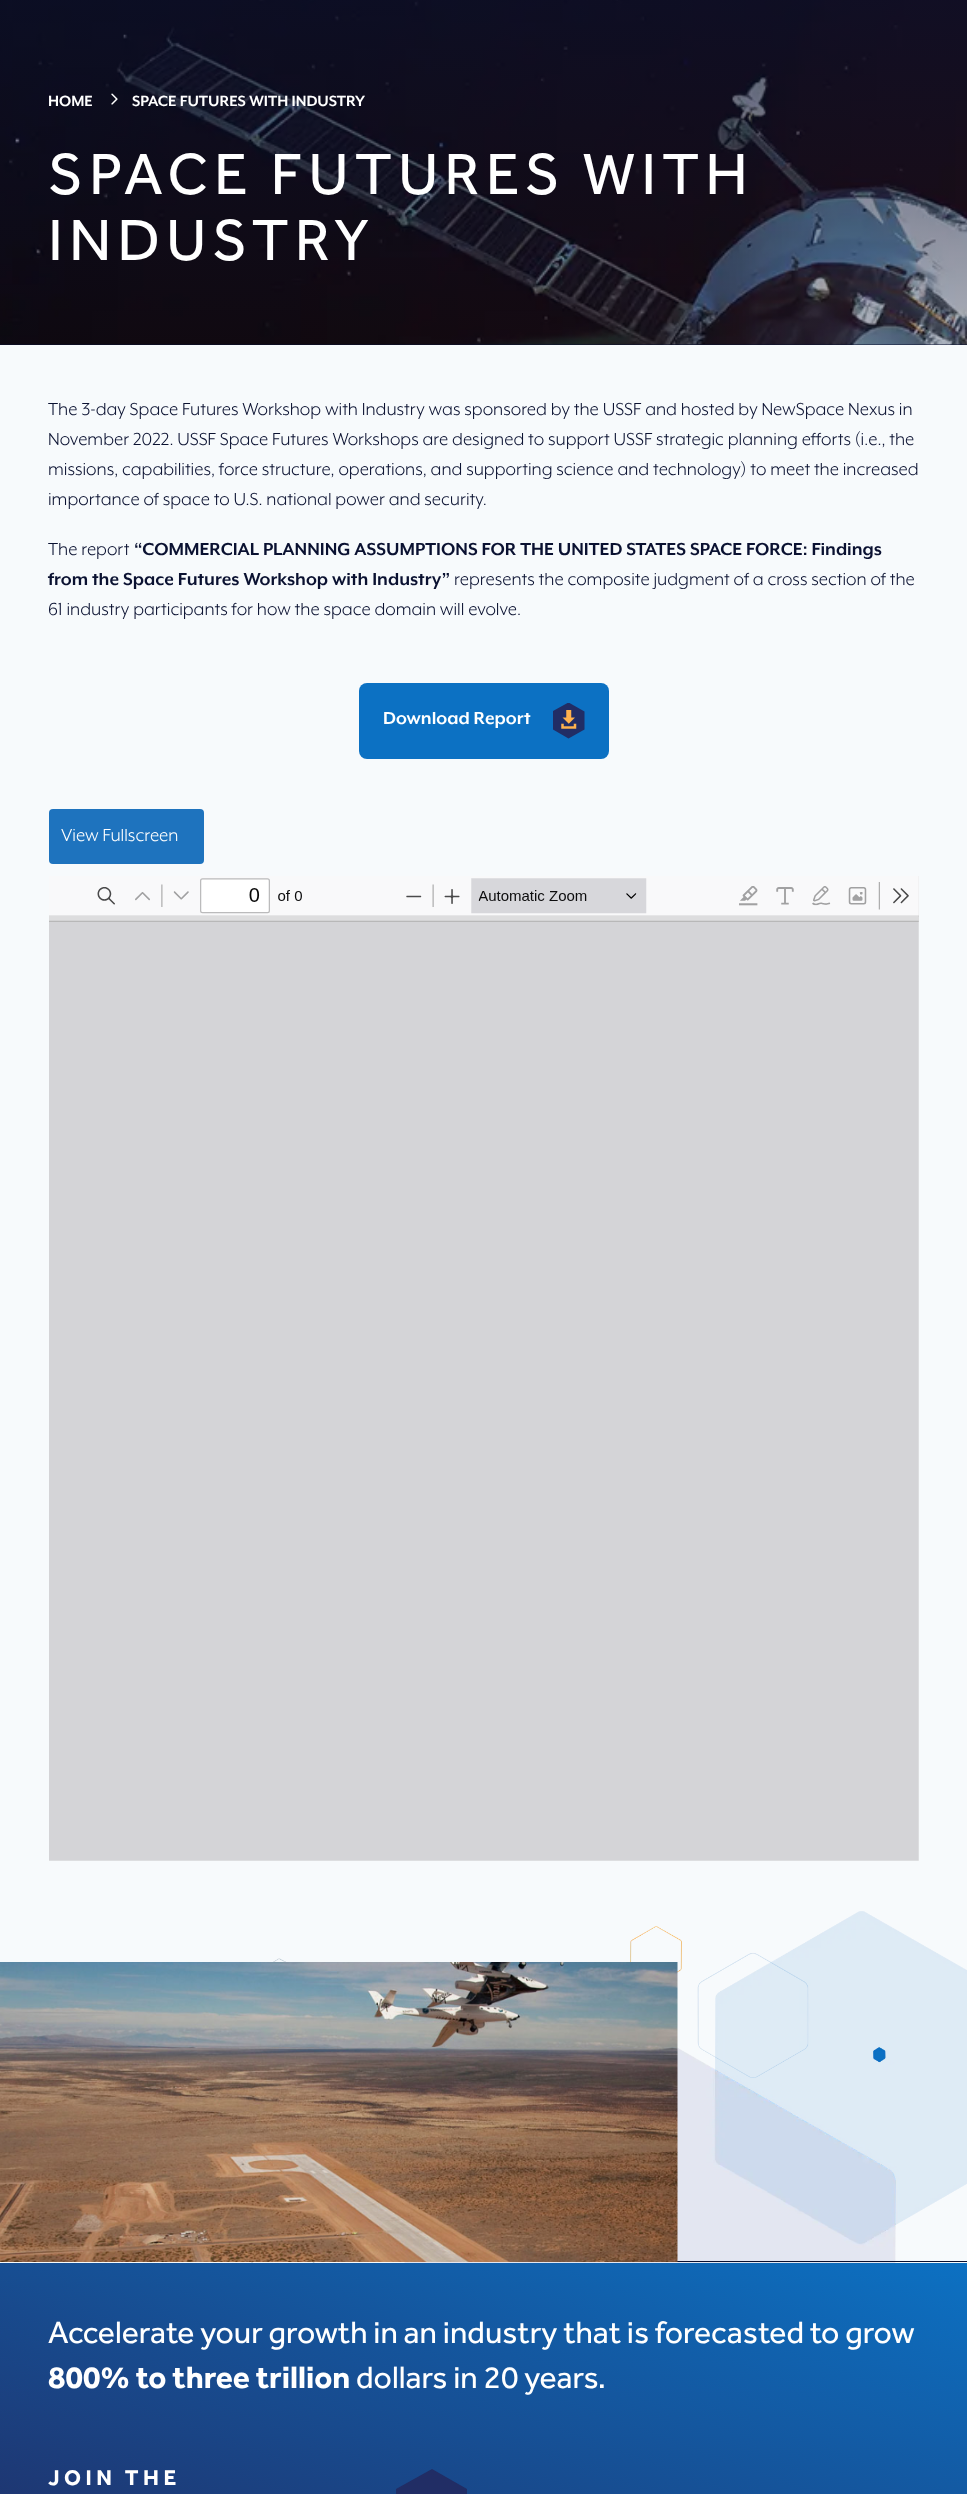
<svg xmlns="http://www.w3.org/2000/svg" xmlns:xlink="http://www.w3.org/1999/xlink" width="967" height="2494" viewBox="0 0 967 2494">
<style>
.cls-1{font:bold 17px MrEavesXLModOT;fill:#ffffff}
.cls-2{font:60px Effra;letter-spacing:6px;fill:#ffffff}
.cls-3{font:20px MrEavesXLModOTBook;fill:#0a1131}
.cls-4{font:bold 20px MrEavesXLModOT;fill:#0a1131}
.cls-5{font:bold 20px MrEavesXLModOT;fill:#ffffff}
.cls-6{font:20px MrEavesXLModOTBook;fill:#ffffff}
.cls-7{font:32px Effra;fill:#ffffff}
.cls-8{font:bold 32px Effra;fill:#ffffff}
.cls-9{font:bold 22px Effra;letter-spacing:4.5px;fill:#ffffff}
</style>
<defs>
<linearGradient id="g1" gradientUnits="userSpaceOnUse" x1="484" y1="-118" x2="484" y2="345"><stop offset="0" stop-color="#0a1131" stop-opacity="0.9"/><stop offset="0.1" stop-color="#0a1131" stop-opacity="0.8"/><stop offset="1" stop-color="#0a1131" stop-opacity="0.3"/></linearGradient>
<linearGradient id="g2" gradientUnits="userSpaceOnUse" x1="594" y1="2126" x2="374" y2="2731"><stop offset="0" stop-color="#0c71c3"/><stop offset="1" stop-color="#212d65"/></linearGradient>
</defs>
<rect width="100%" height="100%" fill="#f7fafc"/>
<rect fill="#0a1131" x="0" y="344" width="967" height="1"/>
<image xlink:href="image0.png" x="0" y="0" width="967" height="345"/>
<rect fill="url(#g1)" x="0" y="0" width="967" height="345"/>
<image xlink:href="image1.png" x="111" y="93" width="7" height="12"/>
<rect fill="#0c71c3" x="359" y="683" width="250" height="76" rx="8"/>
<path fill="#212d65" d="M553 711L567.5 703H569.5L584.5 711.5V729.5L568.5 738.5L553 729.5Z"/>
<image xlink:href="image2.png" x="561" y="710" width="16" height="19"/>
<rect fill="#1e73be" x="49" y="809" width="155" height="55" rx="4"/>
<image xlink:href="image3.png" x="49" y="876" width="870" height="985"/>
<image xlink:href="image4.png" x="250" y="1911" width="717" height="352"/>
<rect fill="#0a1131" x="677" y="2261" width="290" height="1"/>
<image xlink:href="image5.png" x="0" y="1962" width="678" height="300"/>
<rect fill="url(#g2)" x="0" y="2263" width="967" height="231"/>
<path fill="#212d65" d="M396 2489L432 2469L467 2489V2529L438 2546H425L396 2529Z"/>
<text class="cls-1" x="48" y="106">HOME</text>
<text class="cls-1" x="132" y="106">SPACE FUTURES WITH INDUSTRY</text>
<text class="cls-2"><tspan x="48" y="194">SPACE FUTURES WITH</tspan><tspan x="48" y="260">INDUSTRY</tspan></text>
<text class="cls-3"><tspan x="48" y="415">The 3-day Space Futures Workshop with Industry was sponsored by the USSF and hosted by NewSpace Nexus in</tspan><tspan x="48" y="445">November 2022. USSF Space Futures Workshops are designed to support USSF strategic planning efforts (i.e., the</tspan><tspan x="48" y="475">missions, capabilities, force structure, operations, and supporting science and technology) to meet the increased</tspan><tspan x="48" y="505">importance of space to U.S. national power and security.</tspan></text>
<text class="cls-3" x="48" y="555">The report</text>
<text class="cls-4" x="134" y="555">“COMMERCIAL PLANNING ASSUMPTIONS FOR THE UNITED STATES SPACE FORCE: Findings</text>
<text class="cls-4" x="48" y="585">from the Space Futures Workshop with Industry”</text>
<text class="cls-3" x="454" y="585">represents the composite judgment of a cross section of the</text>
<text class="cls-3" x="48" y="615">61 industry participants for how the space domain will evolve.</text>
<text class="cls-5" x="383" y="724">Download Report</text>
<text class="cls-6" x="61" y="841">View Fullscreen</text>
<text class="cls-7" x="48" y="2343">Accelerate your growth in an industry that is forecasted to grow</text>
<text class="cls-8" x="48" y="2388">800% to three trillion</text>
<text class="cls-7" x="356" y="2388">dollars in 20 years.</text>
<text class="cls-9" x="48" y="2485">JOIN THE</text>
</svg>
